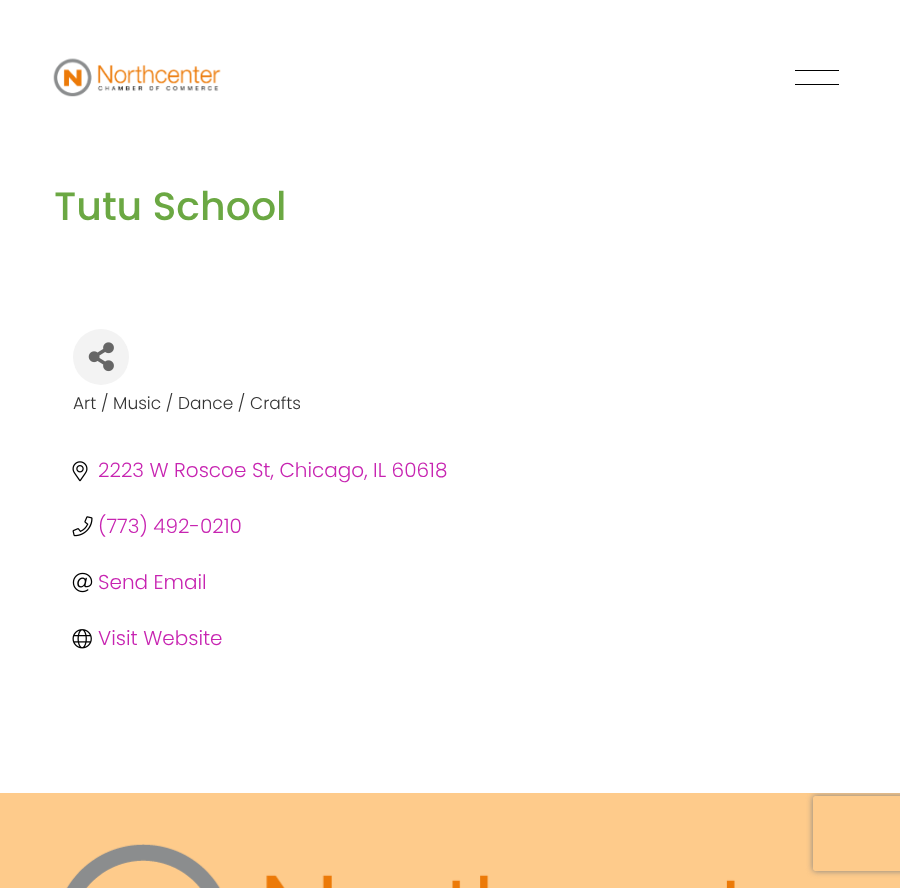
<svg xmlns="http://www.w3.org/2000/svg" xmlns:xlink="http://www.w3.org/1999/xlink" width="900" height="888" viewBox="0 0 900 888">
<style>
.cls-1{font:500 39.5px Poppins;fill:#6ba843}
.cls-2{font:300 17px Poppins;fill:#333333}
.cls-3{font:300 20px Poppins;fill:#c724b1}
</style>
<defs>
<clipPath id="clip1"><path d="M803 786H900V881H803ZM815.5 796H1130.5C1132 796 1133 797 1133 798.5V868.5C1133 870 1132 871 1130.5 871H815.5C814 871 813 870 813 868.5V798.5C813 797 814 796 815.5 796Z" clip-rule="evenodd"/></clipPath>
</defs>
<rect width="100%" height="100%" fill="#fecb8b"/>
<g clip-path="url(#clip1)">
<rect fill="#808080" filter="blur(3px)" x="813" y="796" width="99" height="75" rx="2.5"/>
</g>
<rect fill="#ffffff" x="0" y="0" width="900" height="793"/>
<image xlink:href="image0.png" x="53" y="58" width="168" height="39"/>
<rect fill="#000000" x="795" y="70" width="44" height="1"/>
<rect fill="#000000" x="795" y="84" width="44" height="1"/>
<circle fill="#f3f3f3" cx="101" cy="357" r="28"/>
<image xlink:href="image1.png" x="88" y="342" width="26" height="30"/>
<image xlink:href="image2.png" x="72" y="461" width="16" height="21"/>
<image xlink:href="image3.png" x="72" y="516" width="21" height="21"/>
<image xlink:href="image4.png" x="72" y="572" width="21" height="21"/>
<image xlink:href="image5.png" x="72" y="629" width="20" height="20"/>
<image xlink:href="image6.png" x="66" y="844" width="669" height="44"/>
<text class="cls-1" x="54" y="220">Tutu School</text>
<text class="cls-2" x="73" y="409">Art / Music / Dance / Crafts</text>
<text class="cls-3" x="98" y="477">2223 W Roscoe St, Chicago, IL 60618</text>
<text class="cls-3" x="98" y="533">(773) 492-0210</text>
<text class="cls-3" x="98" y="589">Send Email</text>
<text class="cls-3" x="98" y="645">Visit Website</text>
</svg>
